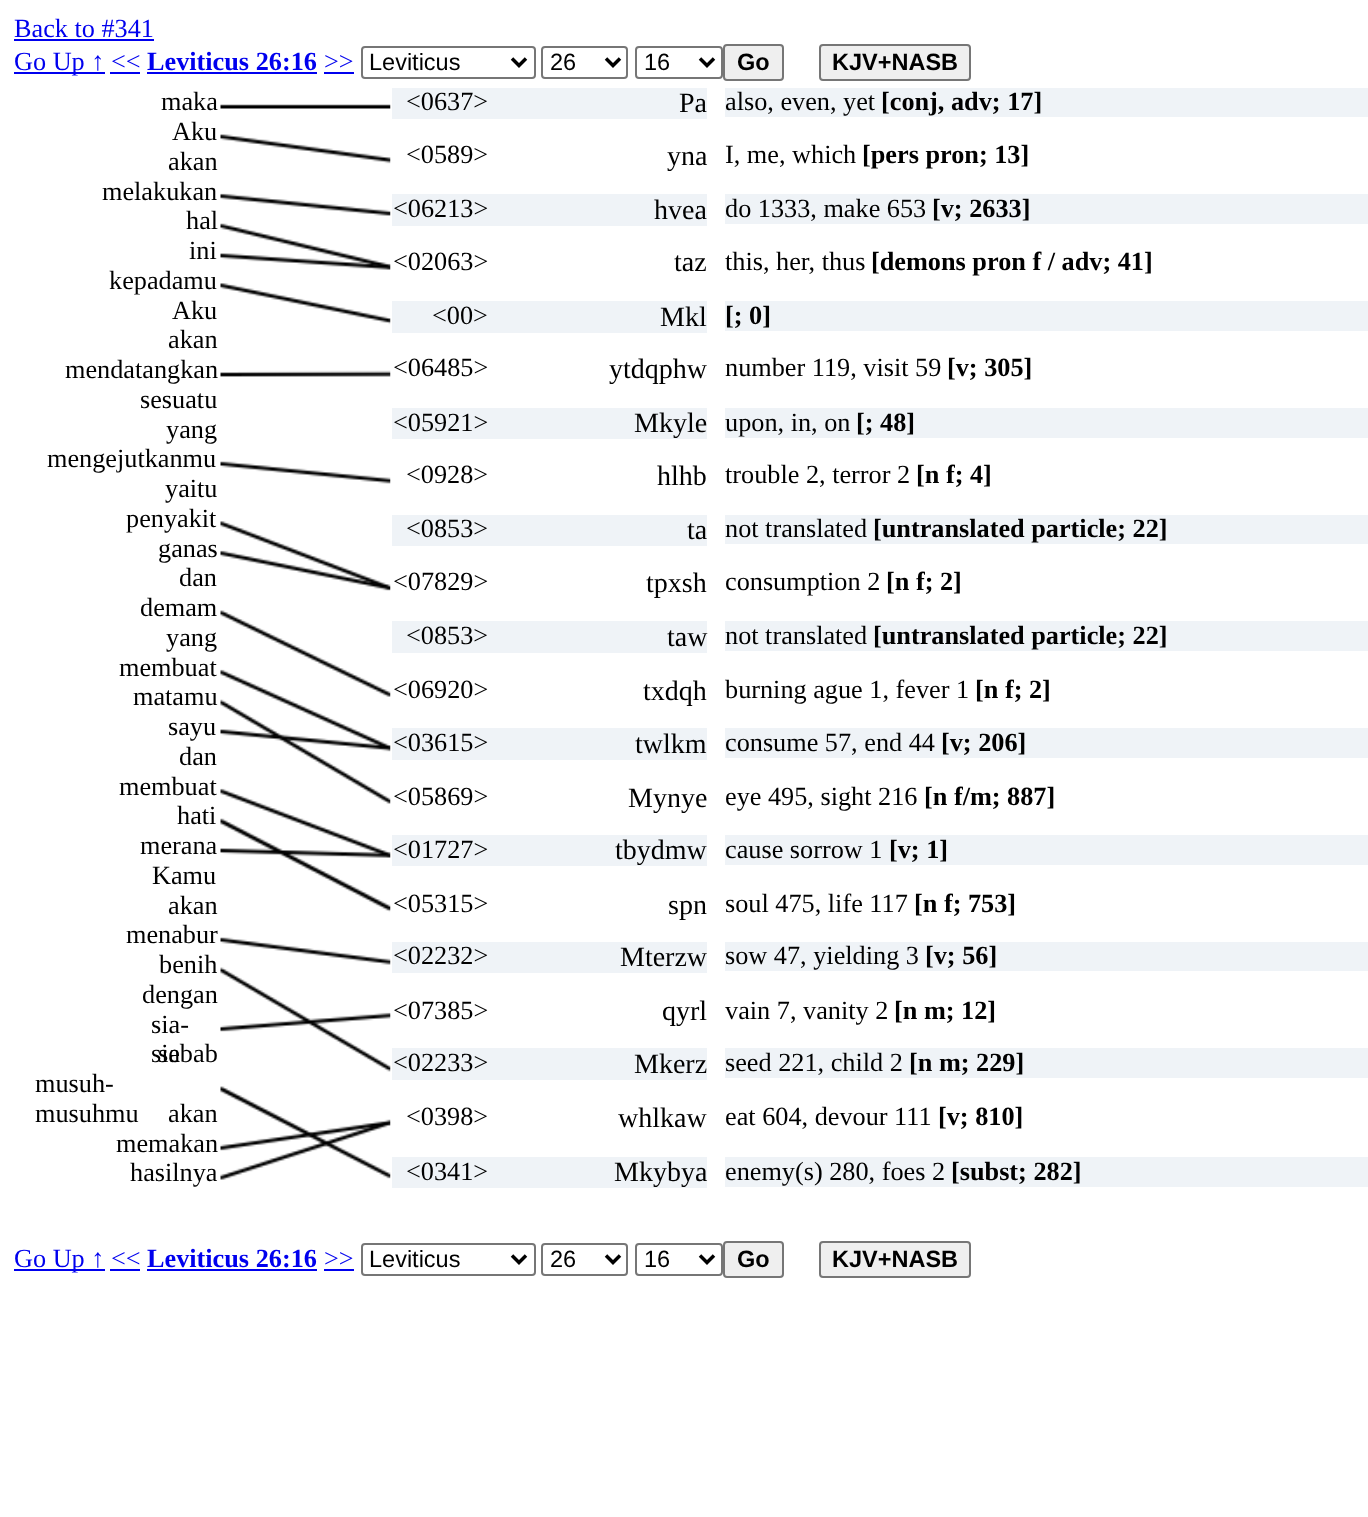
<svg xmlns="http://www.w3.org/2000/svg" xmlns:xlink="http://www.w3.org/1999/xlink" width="1368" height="1517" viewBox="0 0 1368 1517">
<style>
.cls-1{font:26.25px Liberation Serif;fill:#0000ee}
.cls-2{font:bold 26.25px Liberation Serif;fill:#0000ee}
.cls-3{font:23.5px Liberation Sans;fill:#000000}
.cls-4{font:bold 23.5px Liberation Sans;fill:#000000}
.cls-5{font:26.25px Liberation Serif;fill:#000000}
.cls-6{font:28px Liberation Serif;fill:#000000}
.cls-7{font:bold 26.25px Liberation Serif;fill:#000000}
</style>
<rect width="100%" height="100%" fill="#ffffff"/>
<rect fill="#0000ee" x="14" y="39" width="140" height="2"/>
<rect fill="#0000ee" x="14" y="72" width="91" height="2"/>
<rect fill="#0000ee" x="147" y="72" width="170" height="2"/>
<rect fill="#0000ee" x="324" y="72" width="30" height="2"/>
<rect fill="none" stroke="#767676" stroke-width="2" x="362" y="47" width="173" height="31" rx="3"/>
<path fill="none" stroke="#000000" stroke-width="3.5" d="M512 58.5L519 65.5L526 58.5"/>
<rect fill="none" stroke="#767676" stroke-width="2" x="542" y="47" width="85" height="31" rx="3"/>
<path fill="none" stroke="#000000" stroke-width="3.5" d="M606 58.5L613 65.5L620 58.5"/>
<rect fill="none" stroke="#767676" stroke-width="2" x="636" y="47" width="86" height="31" rx="3"/>
<path fill="none" stroke="#000000" stroke-width="3.5" d="M700 58.5L707 65.5L714 58.5"/>
<rect fill="#efefef" stroke="#767676" stroke-width="2" x="724" y="45" width="59" height="35" rx="3"/>
<rect fill="#efefef" stroke="#767676" stroke-width="2" x="820" y="45" width="150" height="35" rx="3"/>
<rect fill="#0000ee" x="110" y="72" width="30" height="2"/>
<image xlink:href="image0.png" x="220" y="104" width="171" height="1076"/>
<rect fill="#eff3f7" x="392" y="88" width="315" height="31"/>
<rect fill="#eff3f7" x="725" y="88" width="643" height="29"/>
<rect fill="#eff3f7" x="392" y="194" width="315" height="32"/>
<rect fill="#eff3f7" x="725" y="194" width="643" height="30"/>
<rect fill="#eff3f7" x="392" y="301" width="315" height="32"/>
<rect fill="#eff3f7" x="725" y="301" width="643" height="30"/>
<rect fill="#eff3f7" x="392" y="408" width="315" height="31"/>
<rect fill="#eff3f7" x="725" y="408" width="643" height="30"/>
<rect fill="#eff3f7" x="392" y="515" width="315" height="31"/>
<rect fill="#eff3f7" x="725" y="515" width="643" height="29"/>
<rect fill="#eff3f7" x="392" y="621" width="315" height="32"/>
<rect fill="#eff3f7" x="725" y="621" width="643" height="30"/>
<rect fill="#eff3f7" x="392" y="728" width="315" height="32"/>
<rect fill="#eff3f7" x="725" y="728" width="643" height="30"/>
<rect fill="#eff3f7" x="392" y="835" width="315" height="31"/>
<rect fill="#eff3f7" x="725" y="835" width="643" height="30"/>
<rect fill="#eff3f7" x="392" y="942" width="315" height="31"/>
<rect fill="#eff3f7" x="725" y="942" width="643" height="29"/>
<rect fill="#eff3f7" x="392" y="1048" width="315" height="32"/>
<rect fill="#eff3f7" x="725" y="1048" width="643" height="30"/>
<rect fill="#eff3f7" x="392" y="1157" width="315" height="31"/>
<rect fill="#eff3f7" x="725" y="1157" width="643" height="30"/>
<rect fill="#0000ee" x="14" y="1269" width="91" height="2"/>
<rect fill="#0000ee" x="147" y="1269" width="170" height="2"/>
<rect fill="#0000ee" x="324" y="1269" width="30" height="2"/>
<rect fill="none" stroke="#767676" stroke-width="2" x="362" y="1244" width="173" height="31" rx="3"/>
<path fill="none" stroke="#000000" stroke-width="3.5" d="M512 1255.5L519 1262.5L526 1255.5"/>
<rect fill="none" stroke="#767676" stroke-width="2" x="542" y="1244" width="85" height="31" rx="3"/>
<path fill="none" stroke="#000000" stroke-width="3.5" d="M606 1255.5L613 1262.5L620 1255.5"/>
<rect fill="none" stroke="#767676" stroke-width="2" x="636" y="1244" width="86" height="31" rx="3"/>
<path fill="none" stroke="#000000" stroke-width="3.5" d="M700 1255.5L707 1262.5L714 1255.5"/>
<rect fill="#efefef" stroke="#767676" stroke-width="2" x="724" y="1242" width="59" height="35" rx="3"/>
<rect fill="#efefef" stroke="#767676" stroke-width="2" x="820" y="1242" width="150" height="35" rx="3"/>
<rect fill="#0000ee" x="110" y="1269" width="30" height="2"/>
<text class="cls-1"><tspan x="14" y="37">Back to #341</tspan><tspan x="14" y="70">Go Up ↑ &lt;&lt;</tspan></text>
<text class="cls-2" x="147" y="70">Leviticus 26:16</text>
<text class="cls-1" x="324" y="70">&gt;&gt;</text>
<text class="cls-3" x="369" y="70">Leviticus</text>
<text class="cls-3" x="550" y="70">26</text>
<text class="cls-3" x="644" y="70">16</text>
<text class="cls-4" x="737" y="70">Go</text>
<text class="cls-4" x="832" y="70">KJV+NASB</text>
<text class="cls-5" x="161" y="110">maka</text>
<text class="cls-5" x="406" y="110">&lt;0637&gt;</text>
<text class="cls-6" x="679" y="112">Pa</text>
<text class="cls-5" x="725" y="110">also, even, yet</text>
<text class="cls-7" x="881" y="110">[conj, adv; 17]</text>
<text class="cls-5" x="172" y="140">Aku</text>
<text class="cls-5" x="168" y="170">akan</text>
<text class="cls-5" x="406" y="163">&lt;0589&gt;</text>
<text class="cls-6" x="667" y="165">yna</text>
<text class="cls-5" x="725" y="163">I, me, which</text>
<text class="cls-7" x="862" y="163">[pers pron; 13]</text>
<text class="cls-5" x="102" y="200">melakukan</text>
<text class="cls-5" x="186" y="229">hal</text>
<text class="cls-5" x="393" y="217">&lt;06213&gt;</text>
<text class="cls-6" x="654" y="219">hvea</text>
<text class="cls-5" x="725" y="217">do 1333, make 653</text>
<text class="cls-7" x="932" y="217">[v; 2633]</text>
<text class="cls-5" x="189" y="259">ini</text>
<text class="cls-5" x="393" y="270">&lt;02063&gt;</text>
<text class="cls-6" x="674" y="271">taz</text>
<text class="cls-5" x="725" y="270">this, her, thus</text>
<text class="cls-7" x="871" y="270">[demons pron f / adv; 41]</text>
<text class="cls-5" x="109" y="289">kepadamu</text>
<text class="cls-5" x="172" y="319">Aku</text>
<text class="cls-5" x="432" y="324">&lt;00&gt;</text>
<text class="cls-6" x="660" y="326">Mkl</text>
<text class="cls-7" x="725" y="324">[; 0]</text>
<text class="cls-5" x="168" y="348">akan</text>
<text class="cls-5" x="65" y="378">mendatangkan</text>
<text class="cls-5" x="393" y="376">&lt;06485&gt;</text>
<text class="cls-6" x="609" y="378">ytdqphw</text>
<text class="cls-5" x="725" y="376">number 119, visit 59</text>
<text class="cls-7" x="947" y="376">[v; 305]</text>
<text class="cls-5" x="140" y="408">sesuatu</text>
<text class="cls-5" x="166" y="438">yang</text>
<text class="cls-5" x="393" y="431">&lt;05921&gt;</text>
<text class="cls-6" x="634" y="432">Mkyle</text>
<text class="cls-5" x="725" y="431">upon, in, on</text>
<text class="cls-7" x="856" y="431">[; 48]</text>
<text class="cls-5" x="47" y="467">mengejutkanmu</text>
<text class="cls-5" x="406" y="483">&lt;0928&gt;</text>
<text class="cls-6" x="657" y="485">hlhb</text>
<text class="cls-5" x="725" y="483">trouble 2, terror 2</text>
<text class="cls-7" x="916" y="483">[n f; 4]</text>
<text class="cls-5" x="165" y="497">yaitu</text>
<text class="cls-5" x="126" y="527">penyakit</text>
<text class="cls-5" x="406" y="537">&lt;0853&gt;</text>
<text class="cls-6" x="687" y="539">ta</text>
<text class="cls-5" x="725" y="537">not translated</text>
<text class="cls-7" x="873" y="537">[untranslated particle; 22]</text>
<text class="cls-5" x="158" y="557">ganas</text>
<text class="cls-5" x="179" y="586">dan</text>
<text class="cls-5" x="393" y="590">&lt;07829&gt;</text>
<text class="cls-6" x="646" y="592">tpxsh</text>
<text class="cls-5" x="725" y="590">consumption 2</text>
<text class="cls-7" x="886" y="590">[n f; 2]</text>
<text class="cls-5" x="140" y="616">demam</text>
<text class="cls-5" x="166" y="646">yang</text>
<text class="cls-5" x="406" y="644">&lt;0853&gt;</text>
<text class="cls-6" x="667" y="646">taw</text>
<text class="cls-5" x="725" y="644">not translated</text>
<text class="cls-7" x="873" y="644">[untranslated particle; 22]</text>
<text class="cls-5" x="119" y="676">membuat</text>
<text class="cls-5" x="133" y="705">matamu</text>
<text class="cls-5" x="393" y="698">&lt;06920&gt;</text>
<text class="cls-6" x="643" y="700">txdqh</text>
<text class="cls-5" x="725" y="698">burning ague 1, fever 1</text>
<text class="cls-7" x="975" y="698">[n f; 2]</text>
<text class="cls-5" x="168" y="735">sayu</text>
<text class="cls-5" x="393" y="751">&lt;03615&gt;</text>
<text class="cls-6" x="635" y="753">twlkm</text>
<text class="cls-5" x="725" y="751">consume 57, end 44</text>
<text class="cls-7" x="941" y="751">[v; 206]</text>
<text class="cls-5" x="179" y="765">dan</text>
<text class="cls-5" x="119" y="795">membuat</text>
<text class="cls-5" x="393" y="805">&lt;05869&gt;</text>
<text class="cls-6" x="628" y="807">Mynye</text>
<text class="cls-5" x="725" y="805">eye 495, sight 216</text>
<text class="cls-7" x="924" y="805">[n f/m; 887]</text>
<text class="cls-5" x="177" y="824">hati</text>
<text class="cls-5" x="140" y="854">merana</text>
<text class="cls-5" x="393" y="858">&lt;01727&gt;</text>
<text class="cls-6" x="615" y="859">tbydmw</text>
<text class="cls-5" x="725" y="858">cause sorrow 1</text>
<text class="cls-7" x="889" y="858">[v; 1]</text>
<text class="cls-5" x="152" y="884">Kamu</text>
<text class="cls-5" x="168" y="914">akan</text>
<text class="cls-5" x="393" y="912">&lt;05315&gt;</text>
<text class="cls-6" x="668" y="914">spn</text>
<text class="cls-5" x="725" y="912">soul 475, life 117</text>
<text class="cls-7" x="914" y="912">[n f; 753]</text>
<text class="cls-5" x="126" y="943">menabur</text>
<text class="cls-5" x="159" y="973">benih</text>
<text class="cls-5" x="393" y="964">&lt;02232&gt;</text>
<text class="cls-6" x="620" y="966">Mterzw</text>
<text class="cls-5" x="725" y="964">sow 47, yielding 3</text>
<text class="cls-7" x="925" y="964">[v; 56]</text>
<text class="cls-5" x="142" y="1003">dengan</text>
<text class="cls-5" x="393" y="1019">&lt;07385&gt;</text>
<text class="cls-6" x="662" y="1020">qyrl</text>
<text class="cls-5" x="725" y="1019">vain 7, vanity 2</text>
<text class="cls-7" x="894" y="1019">[n m; 12]</text>
<text class="cls-5"><tspan x="151" y="1033">sia-</tspan><tspan x="151" y="1062">sia</tspan></text>
<text class="cls-5" x="158" y="1062">sebab</text>
<text class="cls-5" x="393" y="1071">&lt;02233&gt;</text>
<text class="cls-6" x="634" y="1073">Mkerz</text>
<text class="cls-5" x="725" y="1071">seed 221, child 2</text>
<text class="cls-7" x="909" y="1071">[n m; 229]</text>
<text class="cls-5"><tspan x="35" y="1092">musuh-</tspan><tspan x="35" y="1122">musuhmu</tspan></text>
<text class="cls-5" x="168" y="1122">akan</text>
<text class="cls-5" x="406" y="1125">&lt;0398&gt;</text>
<text class="cls-6" x="618" y="1127">whlkaw</text>
<text class="cls-5" x="725" y="1125">eat 604, devour 111</text>
<text class="cls-7" x="938" y="1125">[v; 810]</text>
<text class="cls-5" x="116" y="1152">memakan</text>
<text class="cls-5" x="130" y="1181">hasilnya</text>
<text class="cls-5" x="406" y="1180">&lt;0341&gt;</text>
<text class="cls-6" x="614" y="1181">Mkybya</text>
<text class="cls-5" x="725" y="1180">enemy(s) 280, foes 2</text>
<text class="cls-7" x="951" y="1180">[subst; 282]</text>
<text class="cls-1" x="14" y="1267">Go Up ↑ &lt;&lt;</text>
<text class="cls-2" x="147" y="1267">Leviticus 26:16</text>
<text class="cls-1" x="324" y="1267">&gt;&gt;</text>
<text class="cls-3" x="369" y="1267">Leviticus</text>
<text class="cls-3" x="550" y="1267">26</text>
<text class="cls-3" x="644" y="1267">16</text>
<text class="cls-4" x="737" y="1267">Go</text>
<text class="cls-4" x="832" y="1267">KJV+NASB</text>
</svg>
